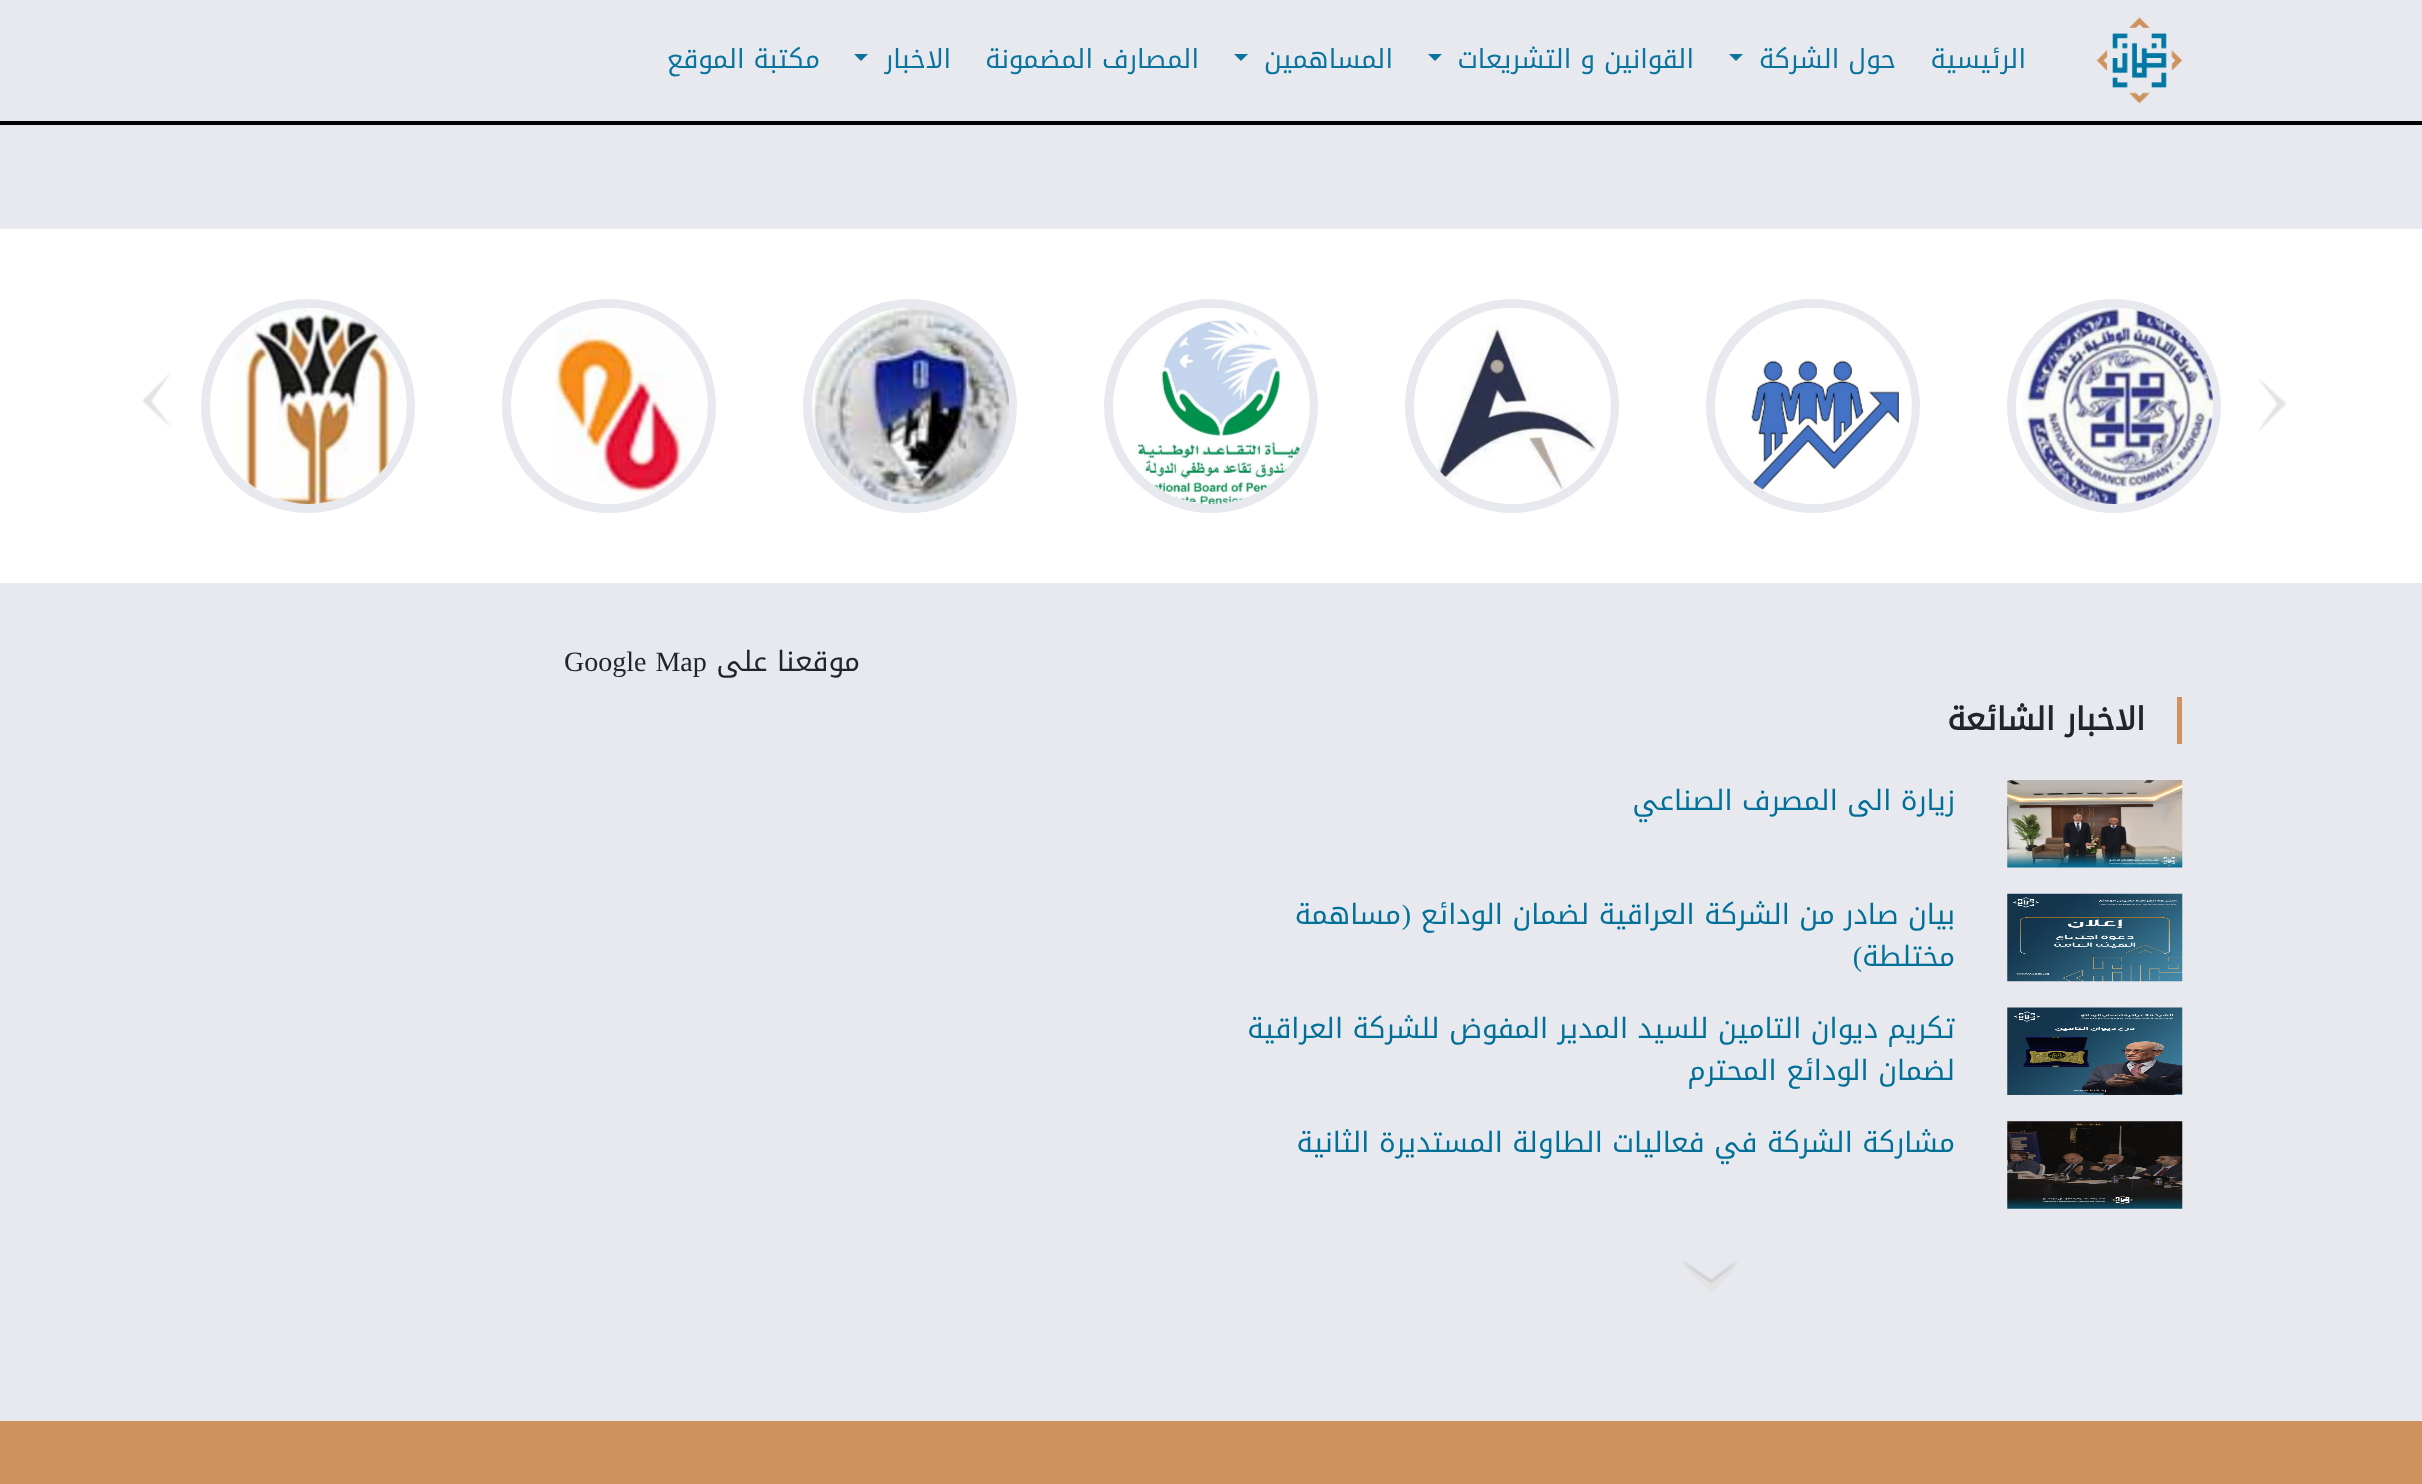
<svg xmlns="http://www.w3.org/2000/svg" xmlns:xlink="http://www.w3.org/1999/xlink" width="2422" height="1484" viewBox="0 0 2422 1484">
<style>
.cls-1{font:26.25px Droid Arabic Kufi;direction:rtl;fill:#0a749e}
.cls-2{font:28px Droid Arabic Kufi;direction:rtl;fill:#212529}
.cls-3{font:28px Liberation Serif;fill:#212529}
.cls-4{font:bold 31.5px Droid Arabic Kufi;direction:rtl;fill:#212529}
.cls-5{font:28px Droid Arabic Kufi;direction:rtl;fill:#017099}
.cls-6{font:28px Liberation Serif;direction:rtl;fill:#017099}
</style>
<rect width="100%" height="100%" fill="#e7e9ef"/>
<rect fill="#000000" x="0" y="121" width="2422" height="4"/>
<image xlink:href="image0.png" x="2096" y="17" width="86" height="87"/>
<path fill="#0a749e" d="M1729 54H1743L1736 61Z"/>
<path fill="#0a749e" d="M1428 54H1442L1435 61Z"/>
<path fill="#0a749e" d="M1234 54H1248L1241 61Z"/>
<path fill="#0a749e" d="M854 54H868L861 61Z"/>
<rect fill="#ffffff" x="0" y="229" width="2422" height="354"/>
<image xlink:href="image1.png" x="2257" y="378" width="30" height="55"/>
<circle fill="none" stroke="#e7e9ef" stroke-width="9" cx="2114" cy="406" r="102.5"/>
<image xlink:href="image2.png" x="2022" y="308" width="191" height="196"/>
<circle fill="none" stroke="#e7e9ef" stroke-width="9" cx="1813" cy="406" r="102.5"/>
<image xlink:href="image3.png" x="1751" y="308" width="161" height="196"/>
<circle fill="none" stroke="#e7e9ef" stroke-width="9" cx="1512" cy="406" r="102.5"/>
<image xlink:href="image4.png" x="1436" y="308" width="175" height="196"/>
<circle fill="none" stroke="#e7e9ef" stroke-width="9" cx="1211" cy="406" r="102.5"/>
<image xlink:href="image5.png" x="1136" y="308" width="174" height="196"/>
<circle fill="none" stroke="#e7e9ef" stroke-width="9" cx="910" cy="406" r="102.5"/>
<image xlink:href="image6.png" x="813" y="308" width="196" height="196"/>
<circle fill="none" stroke="#e7e9ef" stroke-width="9" cx="609" cy="406" r="102.5"/>
<image xlink:href="image7.png" x="554" y="308" width="154" height="196"/>
<circle fill="none" stroke="#e7e9ef" stroke-width="9" cx="308" cy="406" r="102.5"/>
<image xlink:href="image8.png" x="233" y="308" width="174" height="196"/>
<image xlink:href="image9.png" x="142" y="372" width="29" height="55"/>
<rect fill="#ce925e" x="2177" y="697" width="5" height="47"/>
<image xlink:href="image10.png" x="2007" y="780" width="176" height="88"/>
<image xlink:href="image11.png" x="2007" y="893" width="176" height="89"/>
<image xlink:href="image12.png" x="2007" y="1007" width="176" height="88"/>
<image xlink:href="image13.png" x="2007" y="1121" width="176" height="88"/>
<image xlink:href="image14.png" x="1682" y="1261" width="56" height="31"/>
<rect fill="#ce925e" x="0" y="1421" width="2422" height="63"/>
<text class="cls-1" x="2026" y="68">الرئيسية</text>
<text class="cls-1" x="1896" y="68">حول الشركة</text>
<text class="cls-1" x="1694" y="68">القوانين و التشريعات</text>
<text class="cls-1" x="1393" y="68">المساهمين</text>
<text class="cls-1" x="1199" y="68">المصارف المضمونة</text>
<text class="cls-1" x="951" y="68">الاخبار</text>
<text class="cls-1" x="820" y="68">مكتبة الموقع</text>
<text class="cls-2" x="860" y="671">موقعنا على</text>
<text class="cls-3" x="564" y="671" word-spacing="2">Google Map</text>
<text class="cls-4" x="2145" y="730">الاخبار الشائعة</text>
<text class="cls-5" x="1955" y="810">زيارة الى المصرف الصناعي</text>
<text class="cls-5" x="1955" y="924">بيان صادر من الشركة العراقية لضمان الودائع</text>
<text class="cls-6" x="1411" y="924">(</text>
<text class="cls-5" x="1401" y="924">مساهمة</text>
<text class="cls-5" x="1955" y="966">مختلطة</text>
<text class="cls-6" x="1862" y="966">)</text>
<text class="cls-5"><tspan x="1955" y="1038">تكريم ديوان التامين للسيد المدير المفوض للشركة العراقية</tspan><tspan x="1955" y="1080">لضمان الودائع المحترم</tspan></text>
<text class="cls-5" x="1955" y="1152">مشاركة الشركة في فعاليات الطاولة المستديرة الثانية</text>
</svg>
